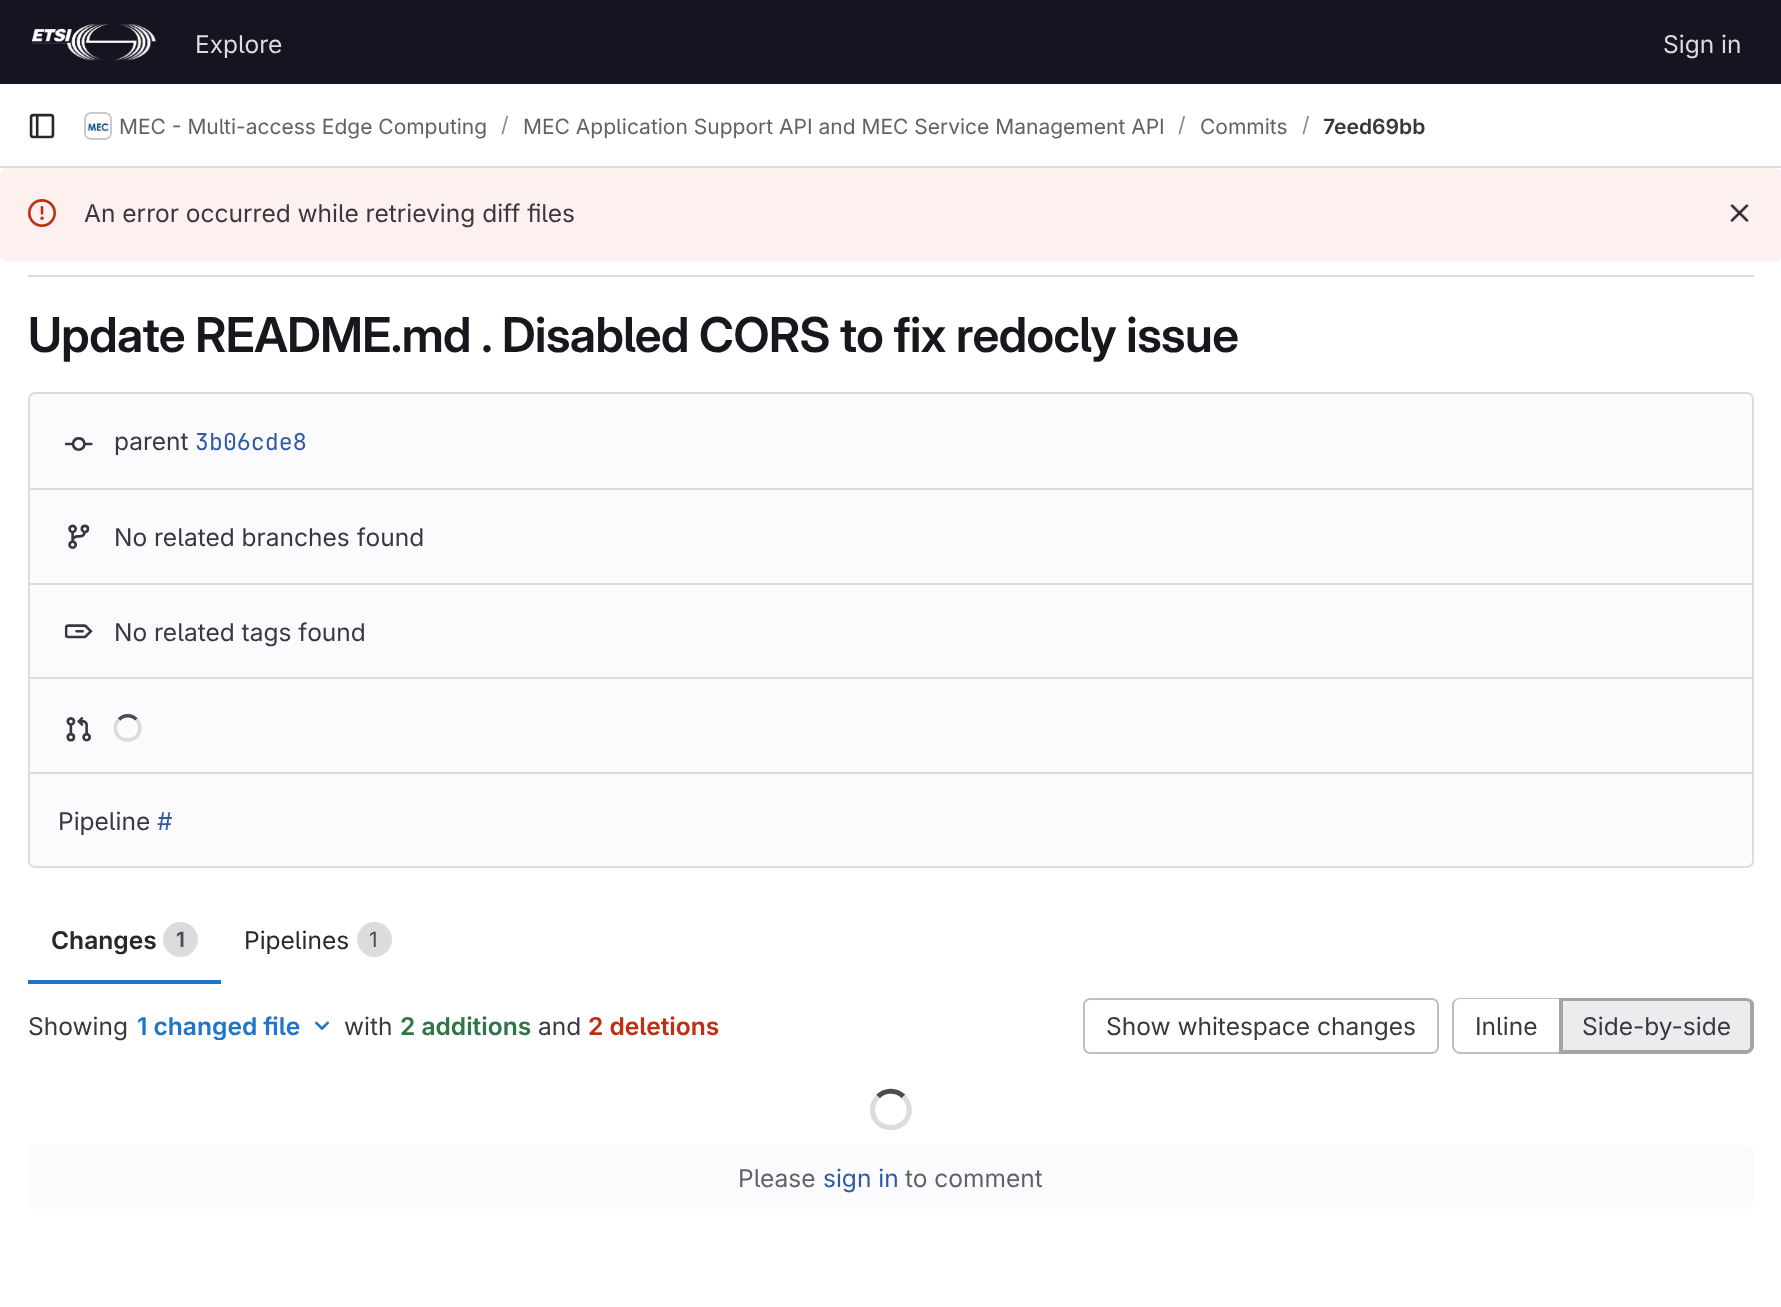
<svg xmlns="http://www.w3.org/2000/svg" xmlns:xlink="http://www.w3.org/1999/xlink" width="1781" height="1307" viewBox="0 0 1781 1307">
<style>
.cls-1{font:24.5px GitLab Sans;fill:#dcdcde}
.cls-2{font:21px GitLab Sans;fill:#626168}
.cls-3{font:21px GitLab Sans;fill:#89888d}
.cls-4{font:600 21px 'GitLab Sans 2';fill:#3a383f}
.cls-5{font:24.5px GitLab Sans;fill:#3a383f}
.cls-6{font:600 48.1px GitLab Sans;letter-spacing:-0.5px;fill:#18171d}
.cls-7{font:23.25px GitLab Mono;fill:#2f5ca0}
.cls-8{font:24.5px GitLab Sans;fill:#2f5ca0}
.cls-9{font:600 24.5px 'GitLab Sans 2';fill:#28272d}
.cls-10{font:600 21px 'GitLab Sans 2';fill:#4c4b51}
.cls-11{font:24.5px GitLab Sans;fill:#28272d}
.cls-12{font:21px GitLab Sans;fill:#4c4b51}
.cls-13{font:600 24.5px 'GitLab Sans 2';fill:#1f75cb}
.cls-14{font:600 24.5px 'GitLab Sans 2';fill:#2f7549}
.cls-15{font:600 24.5px 'GitLab Sans 2';fill:#c02f12}
.cls-16{font:24.5px GitLab Sans;fill:#626168}
</style>
<defs>
<clipPath id="clip1"><rect x="137" y="1012" width="164" height="28"/></clipPath>
</defs>
<rect width="100%" height="100%" fill="#ffffff"/>
<rect fill="#171321" x="0" y="0" width="1781" height="84"/>
<image xlink:href="image0.png" x="31" y="23" width="126" height="38"/>
<rect fill="#dcdcde" x="0" y="166" width="1781" height="2"/>
<image xlink:href="image1.png" x="29" y="113" width="26" height="26"/>
<rect fill="none" stroke="#dcdcde" stroke-width="2" x="85" y="113" width="26" height="26" rx="6"/>
<image xlink:href="image2.png" x="86" y="117" width="24" height="20"/>
<rect fill="none" stroke="#050506" stroke-opacity="0.08" stroke-width="2" x="85" y="113" width="26" height="26" rx="6"/>
<rect fill="#fcf1ef" x="0" y="168" width="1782" height="93" rx="7"/>
<image xlink:href="image3.png" x="28" y="199" width="28" height="28"/>
<image xlink:href="image4.png" x="1730" y="204" width="19" height="18"/>
<rect fill="#dcdcde" x="28" y="275" width="1726" height="2"/>
<rect fill="#fbfafd" stroke="#dcdcde" stroke-width="2" x="29" y="393" width="1724" height="474" rx="6"/>
<image xlink:href="image5.png" x="64" y="437" width="29" height="14"/>
<rect fill="#dcdcde" x="30" y="488" width="1722" height="2"/>
<image xlink:href="image6.png" x="68" y="524" width="22" height="25"/>
<rect fill="#dcdcde" x="30" y="583" width="1722" height="2"/>
<image xlink:href="image7.png" x="64" y="624" width="29" height="15"/>
<rect fill="#dcdcde" x="30" y="677" width="1722" height="2"/>
<image xlink:href="image8.png" x="66" y="717" width="25" height="25"/>
<path fill="none" stroke="#4c4b51" stroke-width="3.5" d="M119 719.5C124 714.5 131.5 714.5 136.5 719.5"/>
<path fill="none" stroke="#dcdcde" stroke-width="3.5" d="M136.5 719.5C138.5 721.5 140 725 140 728C140 742.5 118.5 744.5 115.5 730.5C115 726.5 116 722 119 719.5"/>
<rect fill="#dcdcde" x="30" y="772" width="1722" height="2"/>
<circle fill="#dcdcde" cx="180.5" cy="939.5" r="17.5"/>
<rect fill="#1f75cb" x="28" y="980" width="193" height="4"/>
<circle fill="#dcdcde" cx="374.5" cy="939.5" r="17.5"/>
<image xlink:href="image9.png" x="315" y="1021" width="14" height="9"/>
<rect fill="none" stroke="#bfbfc3" stroke-width="2" x="1084" y="999" width="354" height="54" rx="6"/>
<path fill="#bfbfc3" fill-rule="evenodd" d="M1460 998H1559V1054H1460C1456 1054 1452 1050 1452 1046V1004C1452 1001 1456 998 1460 998ZM1460 999H1559V1052H1460C1457 1052 1454 1049 1454 1046V1004C1454 1002 1457 999 1460 999Z"/>
<path fill="#ececef" stroke="#a4a3a8" stroke-width="2" d="M1562 1000H1747C1749 1000 1751 1002 1751 1004V1047C1751 1049 1749 1051 1747 1051H1562Z"/>
<path fill="#a4a3a8" fill-rule="evenodd" d="M1561 998H1746C1750 998 1754 1001 1754 1004V1046C1754 1050 1750 1054 1746 1054H1561ZM1561 999H1746C1749 999 1752 1002 1752 1004V1046C1752 1049 1749 1052 1746 1052H1561Z"/>
<rect fill="#a4a3a8" x="1559" y="998" width="2" height="56"/>
<path fill="none" stroke="#4c4b51" stroke-width="5.2" d="M878 1096.5C885 1089.5 896.5 1089.5 903.5 1096.5"/>
<path fill="none" stroke="#dcdcde" stroke-width="5.2" d="M903.5 1096.5C908 1101 910 1107 909 1113C904.5 1134.5 872.5 1131.5 872.5 1109.5C872.5 1104.5 874.5 1100 878 1096.5"/>
<rect fill="#fbfafd" x="28" y="1145" width="1726" height="64" rx="7"/>
<text class="cls-1" x="195" y="53">Explore</text>
<text class="cls-1" x="1663" y="53">Sign in</text>
<text class="cls-2" x="119" y="134">MEC - Multi-access Edge Computing</text>
<text class="cls-3" x="501" y="132">/</text>
<text class="cls-2" x="523" y="134">MEC Application Support API and MEC Service Management API</text>
<text class="cls-3" x="1178" y="132">/</text>
<text class="cls-2" x="1200" y="134">Commits</text>
<text class="cls-3" x="1302" y="132">/</text>
<text class="cls-4" x="1323" y="134">7eed69bb</text>
<text class="cls-5" x="84" y="222">An error occurred while retrieving diff files</text>
<text class="cls-6" x="28" y="352">Update README.md .</text>
<text class="cls-6" x="502" y="352">Disabled CORS to fix redocly issue</text>
<text class="cls-5" x="114" y="450">parent</text>
<text class="cls-7" x="195" y="450">3b06cde8</text>
<text class="cls-5" x="114" y="546">No related branches found</text>
<text class="cls-5" x="114" y="641">No related tags found</text>
<text class="cls-5" x="58" y="830">Pipeline</text>
<text class="cls-8" x="157" y="830">#</text>
<text class="cls-9" x="51" y="949">Changes</text>
<text class="cls-10" x="176" y="947">1</text>
<text class="cls-11" x="244" y="949">Pipelines</text>
<text class="cls-12" x="369" y="947">1</text>
<text class="cls-5" x="28" y="1035">Showing</text>
<g clip-path="url(#clip1)">
<text class="cls-13" x="137" y="1035">1 changed file</text>
</g>
<text class="cls-5" x="344" y="1035">with</text>
<text class="cls-14" x="400" y="1035">2 additions</text>
<text class="cls-5" x="538" y="1035">and</text>
<text class="cls-15" x="588" y="1035">2 deletions</text>
<text class="cls-5" x="1106" y="1035">Show whitespace changes</text>
<text class="cls-5" x="1475" y="1035">Inline</text>
<text class="cls-5" x="1582" y="1035">Side-by-side</text>
<text class="cls-16" x="738" y="1187">Please</text>
<text class="cls-8" x="823" y="1187">sign in</text>
<text class="cls-16" x="905" y="1187">to comment</text>
</svg>
